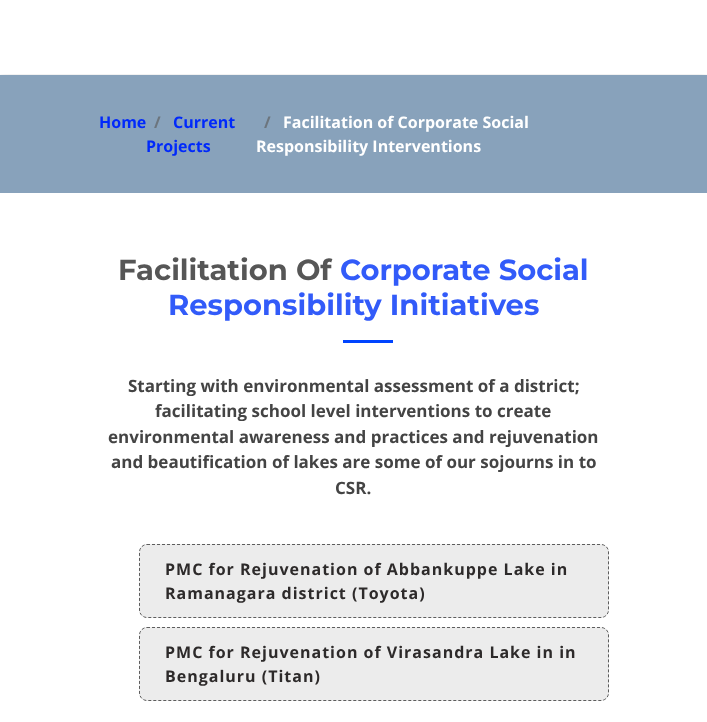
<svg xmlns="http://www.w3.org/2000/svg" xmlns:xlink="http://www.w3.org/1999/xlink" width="707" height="722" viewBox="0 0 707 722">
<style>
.cls-1{font:bold 16px Open Sans;fill:#0029fb}
.cls-2{font:bold 16px Open Sans;fill:#6c757d}
.cls-3{font:bold 16px Open Sans;fill:#ffffff}
.cls-4{font:bold 29px Montserrat;fill:#565656}
.cls-5{font:bold 29px Montserrat;fill:#325bf9}
.cls-6{font:bold 17px Open Sans;fill:#444444}
.cls-7{font:bold 16px Open Sans;letter-spacing:1px;fill:#2d2a2a}
</style>
<defs>
<clipPath id="clip1"><rect x="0" y="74" width="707" height="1"/></clipPath>
</defs>
<rect width="100%" height="100%" fill="#ffffff"/>
<g clip-path="url(#clip1)">
<rect fill="#000000" fill-opacity="0.06" filter="blur(4.5px)" x="0" y="6" width="707" height="74"/>
</g>
<rect fill="#88a2bb" x="0" y="75" width="707" height="118"/>
<rect fill="#0044ff" x="343" y="340" width="50" height="3"/>
<rect fill="#ececec" x="139" y="544" width="470" height="74" rx="8"/>
<path fill="none" stroke="#5d5d5d" stroke-dasharray="3 2" d="M147 544.5H601C605 544.5 608.5 548 608.5 552V610C608.5 614 605 617.5 601 617.5H147C143 617.5 139.5 614 139.5 610V552C139.5 548 143 544.5 147 544.5Z"/>
<rect fill="#ececec" x="139" y="627" width="470" height="74" rx="8"/>
<path fill="none" stroke="#5d5d5d" stroke-dasharray="3 2" d="M147 627.5H601C605 627.5 608.5 631 608.5 635V693C608.5 697 605 700.5 601 700.5H147C143 700.5 139.5 697 139.5 693V635C139.5 631 143 627.5 147 627.5Z"/>
<text class="cls-1" x="99" y="128">Home</text>
<text class="cls-2" x="154" y="128">/</text>
<text class="cls-1" x="173" y="128">Current</text>
<text class="cls-1" x="146" y="152">Projects</text>
<text class="cls-2" x="264" y="128">/</text>
<text class="cls-3" x="283" y="128">Facilitation of Corporate Social</text>
<text class="cls-3" x="256" y="152">Responsibility Interventions</text>
<text class="cls-4" x="118" y="280">Facilitation Of</text>
<text class="cls-5" x="340" y="280">Corporate Social</text>
<text class="cls-5" x="168" y="315">Responsibility Initiatives</text>
<text class="cls-6" x="128" y="392">Starting with environmental assessment of a district;</text>
<text class="cls-6" x="155" y="417">facilitating school level interventions to create</text>
<text class="cls-6" x="108" y="443">environmental awareness and practices and rejuvenation</text>
<text class="cls-6" x="111" y="468">and beautification of lakes are some of our sojourns in to</text>
<text class="cls-6" x="335" y="494">CSR.</text>
<text class="cls-7"><tspan x="165" y="575">PMC for Rejuvenation of Abbankuppe Lake in</tspan><tspan x="165" y="599">Ramanagara district (Toyota)</tspan></text>
<text class="cls-7"><tspan x="165" y="658">PMC for Rejuvenation of Virasandra Lake in in</tspan><tspan x="165" y="682">Bengaluru (Titan)</tspan></text>
</svg>
